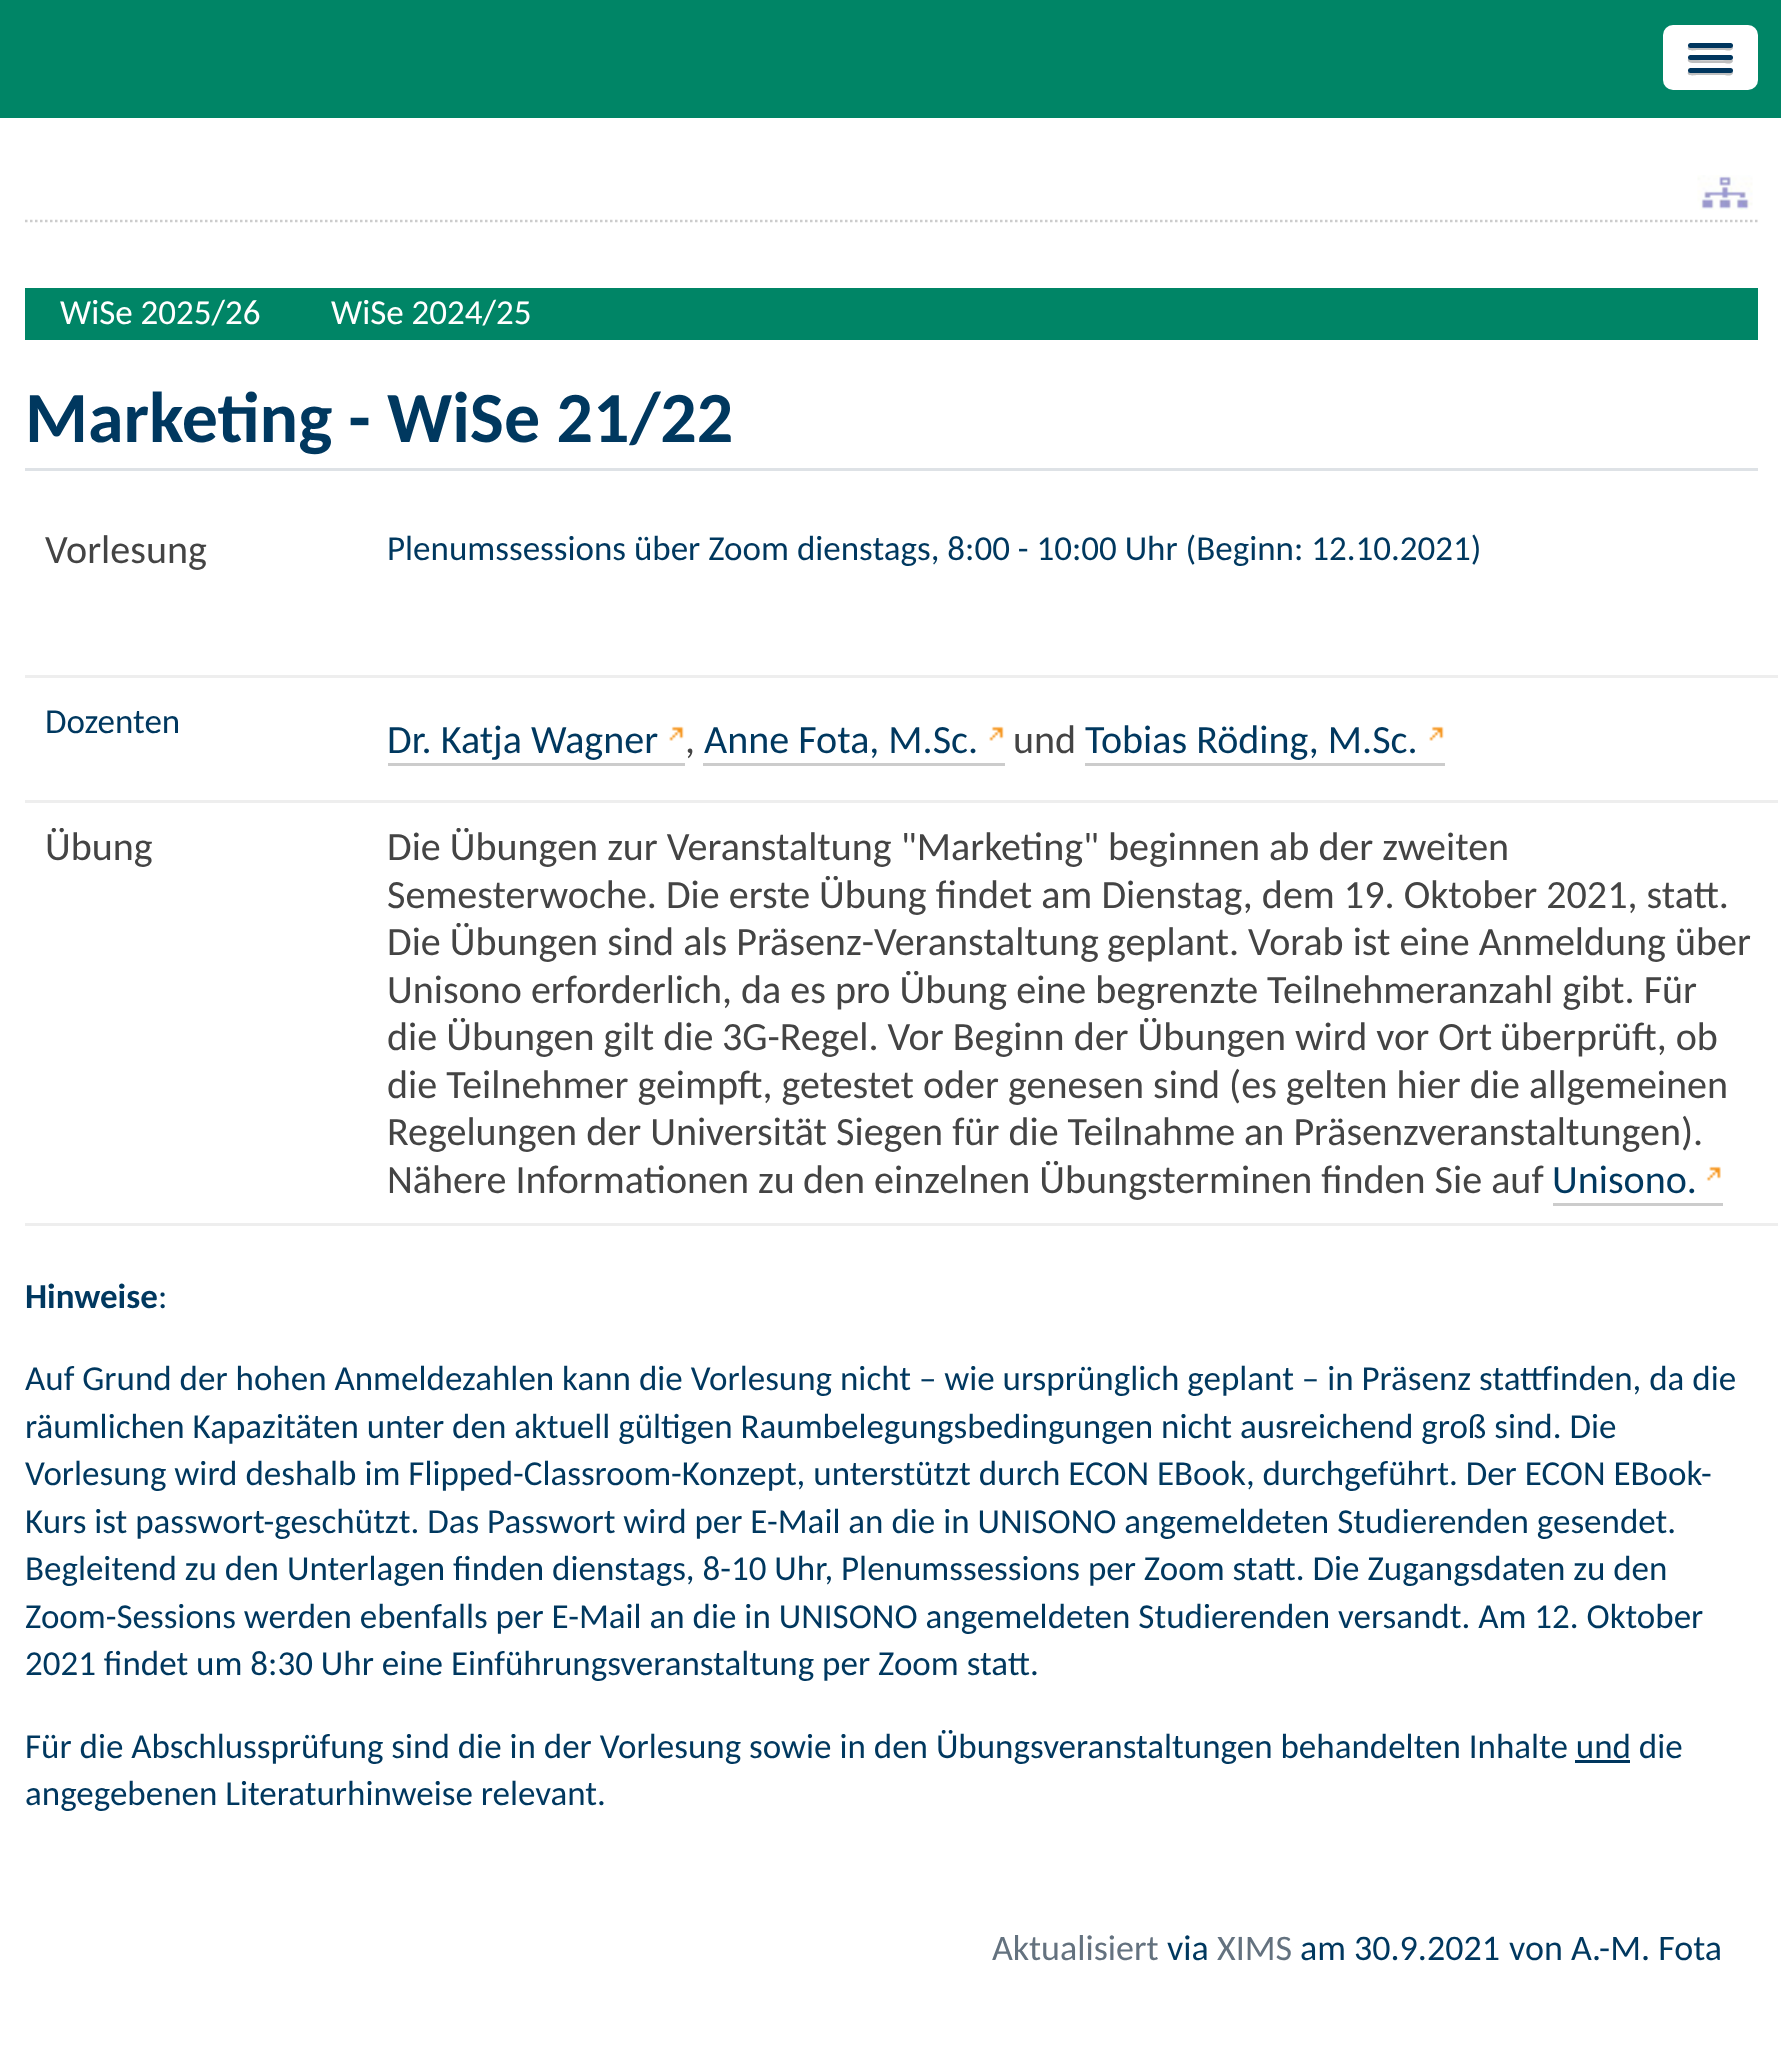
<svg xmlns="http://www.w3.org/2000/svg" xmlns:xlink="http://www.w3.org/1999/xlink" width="1781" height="2052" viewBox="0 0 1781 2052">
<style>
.cls-1{font:35px Carlito;fill:#ffffff}
.cls-2{font:bold 72px Carlito;fill:#00385f}
.cls-3{font:40.05px Carlito;fill:#444444}
.cls-4{font:35px Carlito;fill:#00385f}
.cls-5{font:40.05px Carlito;fill:#00385f}
.cls-6{font:bold 35px Carlito;fill:#00385f}
.cls-7{font:36px Carlito;fill:#64727f}
.cls-8{font:36px Carlito;fill:#00385f}
</style>
<rect width="100%" height="100%" fill="#ffffff"/>
<rect fill="#008566" x="0" y="0" width="1781" height="118"/>
<rect fill="#ffffff" x="1663" y="25" width="95" height="65" rx="10"/>
<path fill="#bfbfbf" d="M1688 47C1686 52 1696 50 1697 50H1724C1725 50 1732 52 1733 48L1732 46L1730 47H1690Z"/>
<rect fill="#00365e" x="1688" y="43" width="45" height="5" rx="2.5"/>
<path fill="#bfbfbf" d="M1688 59C1686 64 1697 63 1697 63H1724C1725 63 1732 65 1733 61L1732 59L1730 60C1727 60 1690 61 1688 59Z"/>
<rect fill="#00365e" x="1688" y="55" width="45" height="5" rx="2.5"/>
<path fill="#bfbfbf" d="M1688 72C1686 77 1696 75 1697 75H1724C1725 75 1732 77 1733 73L1732 71L1730 72H1690Z"/>
<rect fill="#00365e" x="1688" y="68" width="45" height="5" rx="2.5"/>
<path fill="none" stroke="#cccccc" stroke-width="2.5" stroke-dasharray="2.5 2.5" d="M25 221H1757.5"/>
<image xlink:href="image0.png" x="1697" y="175" width="56" height="35"/>
<rect fill="#008566" x="25" y="288" width="1733" height="52"/>
<rect fill="#dee2e6" x="25" y="468" width="1733" height="3"/>
<rect fill="#eeeeee" x="25" y="675" width="1753" height="3"/>
<rect fill="#eeeeee" x="25" y="800" width="1753" height="3"/>
<rect fill="#cccccc" x="388" y="763" width="297" height="3"/>
<image xlink:href="image1.png" x="669" y="726" width="15" height="15"/>
<rect fill="#cccccc" x="703" y="763" width="302" height="3"/>
<image xlink:href="image2.png" x="989" y="726" width="15" height="15"/>
<rect fill="#cccccc" x="1085" y="763" width="360" height="3"/>
<image xlink:href="image1.png" x="1429" y="726" width="15" height="15"/>
<rect fill="#eeeeee" x="25" y="1223" width="1753" height="3"/>
<rect fill="#cccccc" x="1553" y="1203" width="170" height="3"/>
<image xlink:href="image3.png" x="1706" y="1166" width="15" height="15"/>
<text class="cls-1" x="60" y="324">WiSe 2025/26</text>
<text class="cls-1" x="331" y="324">WiSe 2024/25</text>
<text class="cls-2" x="25" y="442">Marketing - WiSe 21/22</text>
<text class="cls-3" x="45" y="563">Vorlesung</text>
<text class="cls-4" x="387" y="560">Plenumssessions über Zoom dienstags, 8:00 - 10:00 Uhr (Beginn: 12.10.2021)</text>
<text class="cls-4" x="45" y="733">Dozenten</text>
<text class="cls-5" x="387" y="753">Dr. Katja Wagner</text>
<text class="cls-3" x="685" y="753">,</text>
<text class="cls-5" x="704" y="753">Anne Fota, M.Sc.</text>
<text class="cls-3" x="1013" y="753">und</text>
<text class="cls-5" x="1085" y="753">Tobias Röding, M.Sc.</text>
<text class="cls-3" x="45" y="860">Übung</text>
<text class="cls-3" x="387" y="860">Die Übungen zur Veranstaltung "Marketing"</text>
<text class="cls-3" x="1108" y="860">beginnen ab der zweiten</text>
<text class="cls-3" x="387" y="908">Semesterwoche. Die erste</text>
<text class="cls-3" x="819" y="908">Übung findet am Dienstag, dem 19. Oktober 2021, statt.</text>
<text class="cls-3" x="387" y="955">Die Übungen sind als Präsenz-Veranstaltung</text>
<text class="cls-3" x="1107" y="955">geplant. Vorab ist eine Anmeldung über</text>
<text class="cls-3" x="387" y="1003">Unisono erforderlich, da es pro Übung eine begrenzte</text>
<text class="cls-3" x="1267" y="1003">Teilnehmeranzahl gibt. Für</text>
<text class="cls-3" x="387" y="1050">die Übungen gilt die</text>
<text class="cls-3" x="722" y="1050">3G-Regel. Vor Beginn der Übungen wird vor Ort</text>
<text class="cls-3" x="1500" y="1050">überprüft, ob</text>
<text class="cls-3" x="387" y="1098">die Teilnehmer geimpft, getestet oder</text>
<text class="cls-3" x="1008" y="1098">genesen sind (es gelten hier die allgemeinen</text>
<text class="cls-3"><tspan x="387" y="1145">Regelungen der Universität Siegen für die Teilnahme an Präsenzveranstaltungen).</tspan><tspan x="387" y="1193">Nähere Informationen zu</tspan></text>
<text class="cls-3" x="803" y="1193">den einzelnen Übungsterminen finden Sie auf</text>
<text class="cls-5" x="1552" y="1193">Unisono.</text>
<text class="cls-6" x="25" y="1308">Hinweise</text>
<text class="cls-4" x="158" y="1308">:</text>
<text class="cls-4"><tspan x="25" y="1390">Auf Grund der hohen Anmeldezahlen kann die Vorlesung nicht – wie ursprünglich geplant – in Präsenz stattfinden, da die</tspan><tspan x="25" y="1438">räumlichen Kapazitäten unter den aktuell gültigen Raumbelegungsbedingungen nicht ausreichend groß sind. Die</tspan><tspan x="25" y="1485">Vorlesung wird deshalb im Flipped-Classroom-Konzept, unterstützt durch ECON EBook, durchgeführt. Der ECON EBook-</tspan><tspan x="25" y="1533">Kurs ist passwort-geschützt. Das Passwort wird per E-Mail an die in UNISONO angemeldeten Studierenden gesendet.</tspan><tspan x="25" y="1580">Begleitend zu den Unterlagen finden dienstags, 8-10 Uhr, Plenumssessions per Zoom statt. Die Zugangsdaten zu den</tspan><tspan x="25" y="1628">Zoom-Sessions werden ebenfalls per E-Mail an die in UNISONO angemeldeten Studierenden versandt. Am 12. Oktober</tspan><tspan x="25" y="1675">2021 findet um 8:30 Uhr eine Einführungsveranstaltung per Zoom statt.</tspan></text>
<text class="cls-4" x="25" y="1758">Für die Abschlussprüfung sind die in der Vorlesung sowie in den Übungsveranstaltungen behandelten Inhalte und die</text>
<rect fill="#00365e" x="1575" y="1760" width="55" height="3"/>
<text class="cls-4" x="25" y="1805">angegebenen Literaturhinweise relevant.</text>
<text class="cls-7" x="992" y="1960">Aktualisiert</text>
<text class="cls-8" x="1167" y="1960">via</text>
<text class="cls-7" x="1217" y="1960">XIMS</text>
<text class="cls-8" x="1300" y="1960">am</text>
<text class="cls-8" x="1354" y="1960">30.9.2021</text>
<text class="cls-8" x="1509" y="1960">von A.-M. Fota</text>
</svg>
